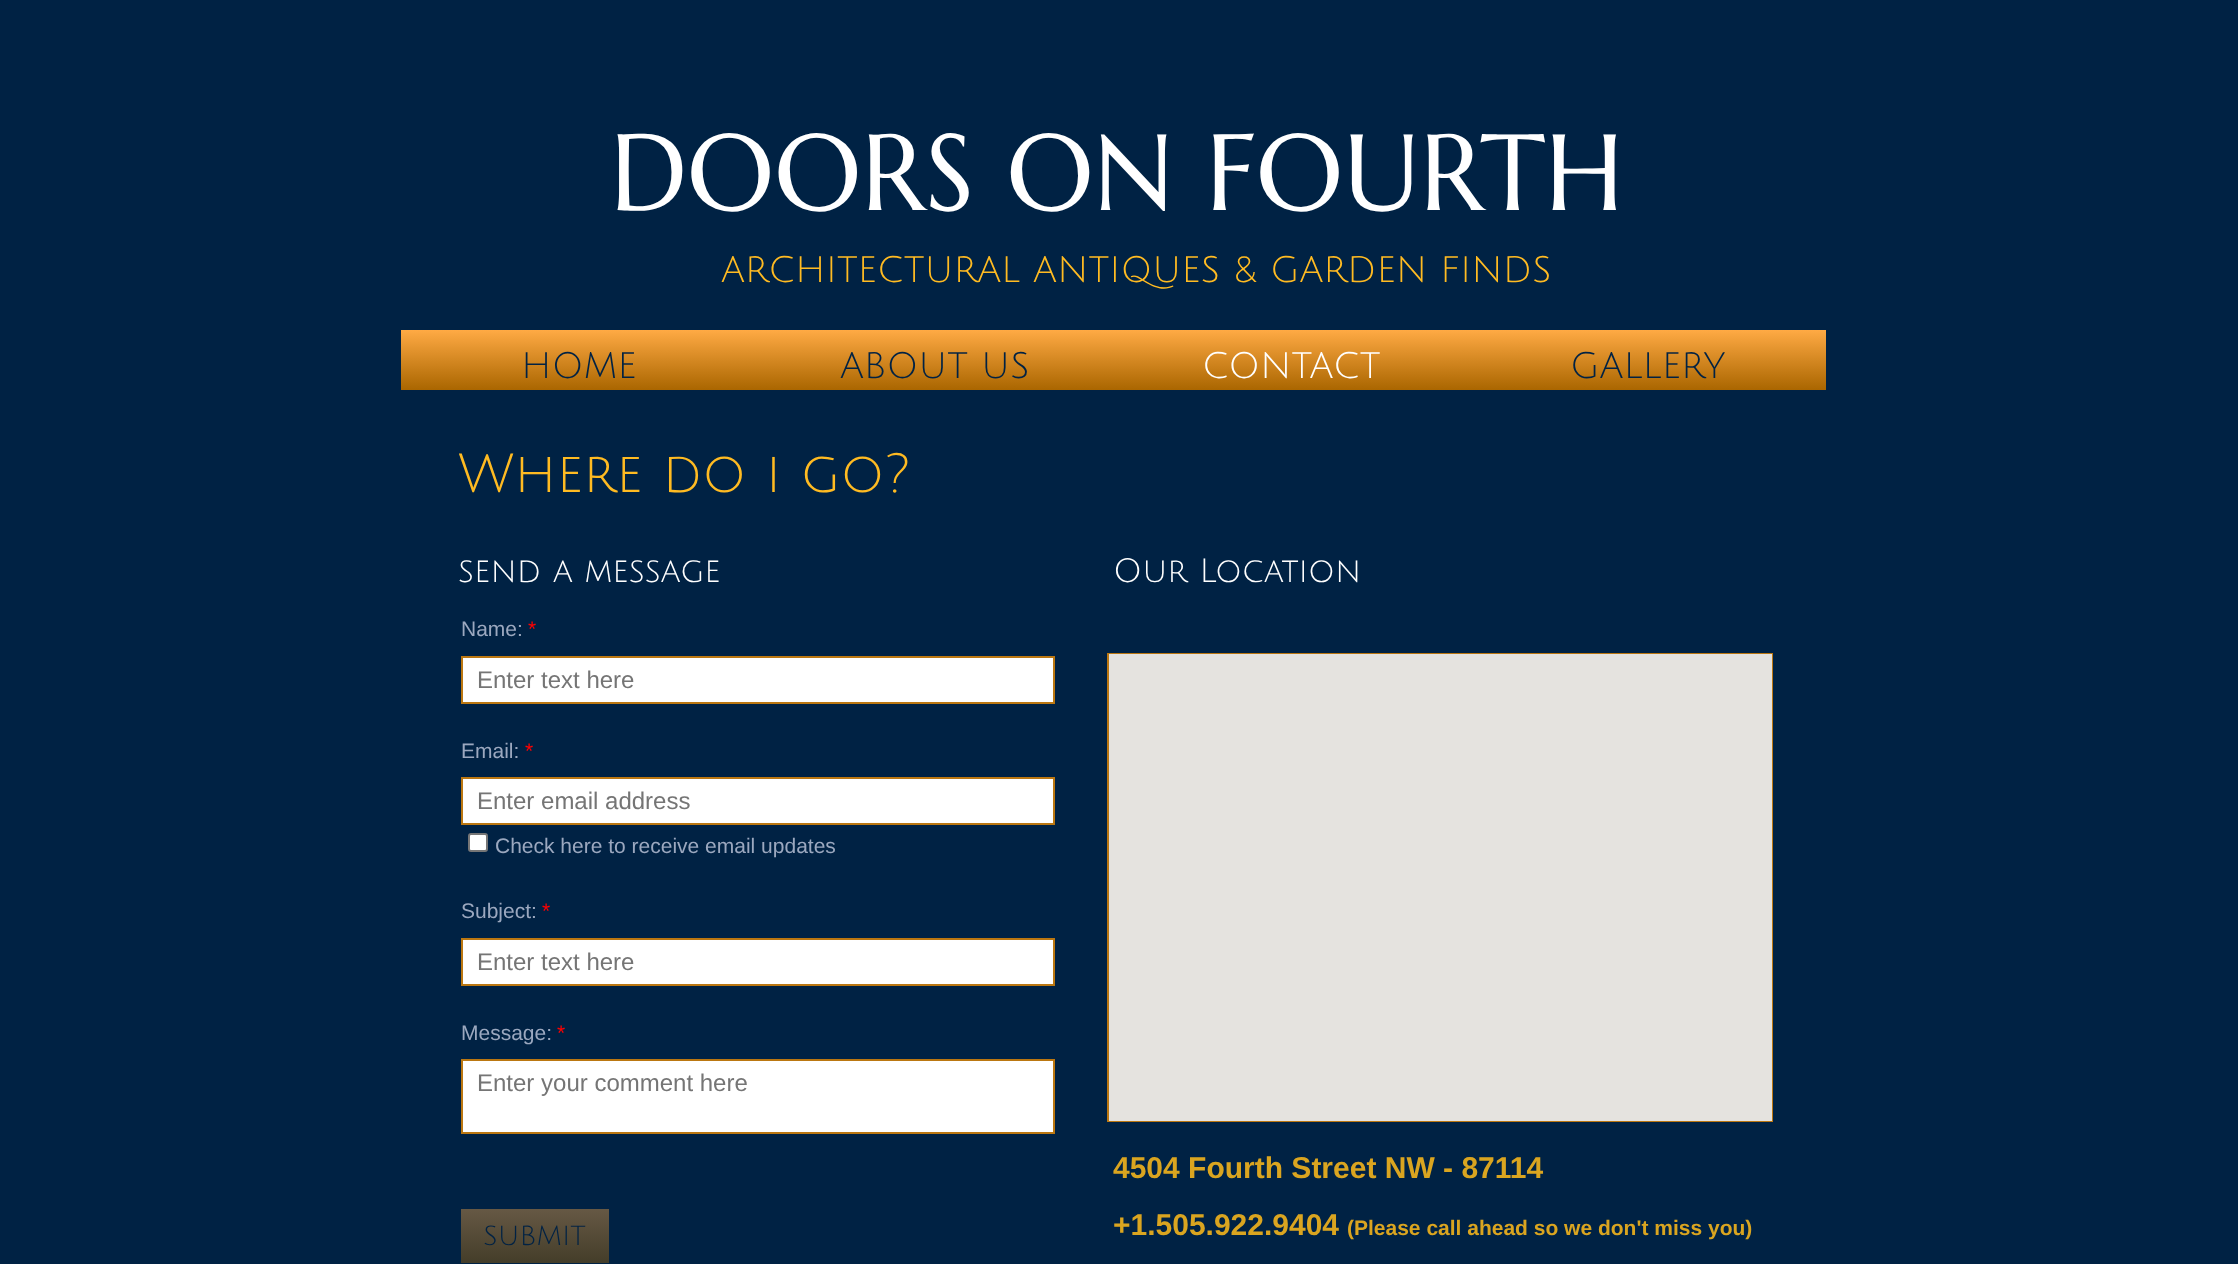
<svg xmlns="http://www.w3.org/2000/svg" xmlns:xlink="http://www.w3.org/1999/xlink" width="2238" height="1264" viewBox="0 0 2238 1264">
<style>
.cls-1{font:108px Marcellus;fill:#ffffff}
.cls-2{font:36px Julius Sans One;fill:#ffbb22}
.cls-3{font:36px Julius Sans One;fill:#002244}
.cls-4{font:36px Julius Sans One;fill:#ffffff}
.cls-5{font:54px Julius Sans One;fill:#ffbb22}
.cls-6{font:33px Julius Sans One;fill:#ffffff}
.cls-7{font:21px Liberation Sans;fill:#9ba8bf}
.cls-8{font:21px Liberation Sans;fill:#ff0000}
.cls-9{font:24px Liberation Sans;fill:#757575}
.cls-10{font:27px Julius Sans One;fill:#002244}
.cls-11{font:bold 30px Liberation Sans;fill:#daa520}
.cls-12{font:bold 21px Liberation Sans;fill:#daa520}
</style>
<defs>
<linearGradient id="g1" gradientUnits="userSpaceOnUse" x1="1113" y1="330" x2="1113" y2="390"><stop offset="0" stop-color="#ffaa44"/><stop offset="1" stop-color="#aa6600"/></linearGradient>
<linearGradient id="g2" gradientUnits="userSpaceOnUse" x1="535" y1="1209" x2="535" y2="1263"><stop offset="0" stop-color="#665844"/><stop offset="1" stop-color="#443d29"/></linearGradient>
</defs>
<rect width="100%" height="100%" fill="#002244"/>
<rect fill="url(#g1)" x="401" y="330" width="1425" height="60"/>
<rect fill="#ffffff" stroke="#bb7711" stroke-width="2" x="462" y="657" width="592" height="46"/>
<rect fill="none" stroke="#bb7711" stroke-width="2" x="1108" y="654" width="664" height="467"/>
<rect fill="#e5e3df" x="1109" y="654" width="663" height="467"/>
<rect fill="#ffffff" stroke="#bb7711" stroke-width="2" x="462" y="778" width="592" height="46"/>
<rect fill="#ffffff" stroke="#767676" stroke-width="2" x="469" y="834" width="18" height="17" rx="2"/>
<rect fill="#ffffff" stroke="#bb7711" stroke-width="2" x="462" y="939" width="592" height="46"/>
<rect fill="#ffffff" stroke="#bb7711" stroke-width="2" x="462" y="1060" width="592" height="73"/>
<rect fill="url(#g2)" x="461" y="1209" width="148" height="54"/>
<text class="cls-1" x="610" y="210">DOORS ON FOURTH</text>
<text class="cls-2" x="721" y="282">ARCHITECTURAL ANTIQUES &amp; GARDEN FINDS</text>
<text class="cls-3" x="521" y="378">HOME</text>
<text class="cls-3" x="840" y="378">ABOUT US</text>
<text class="cls-4" x="1202" y="378">CONTACT</text>
<text class="cls-3" x="1570" y="378">GALLERY</text>
<text class="cls-5" x="458" y="492">Where do i go?</text>
<text class="cls-6" x="458" y="582">send a message</text>
<text class="cls-6" x="1113" y="582">Our Location</text>
<text class="cls-7" x="461" y="636">Name:</text>
<text class="cls-8" x="528" y="636">*</text>
<text class="cls-9" x="477" y="688">Enter text here</text>
<text class="cls-7" x="461" y="758">Email:</text>
<text class="cls-8" x="525" y="758">*</text>
<text class="cls-9" x="477" y="809">Enter email address</text>
<text class="cls-7" x="495" y="853">Check here to receive email updates</text>
<text class="cls-7" x="461" y="918">Subject:</text>
<text class="cls-8" x="542" y="918">*</text>
<text class="cls-9" x="477" y="970">Enter text here</text>
<text class="cls-7" x="461" y="1040">Message:</text>
<text class="cls-8" x="557" y="1040">*</text>
<text class="cls-9" x="477" y="1091">Enter your comment here</text>
<text class="cls-10" x="483" y="1245">SUBMIT</text>
<text class="cls-11"><tspan x="1113" y="1178">4504 Fourth Street NW - 87114</tspan><tspan x="1113" y="1235">+1.505.922.9404</tspan></text>
<text class="cls-12" x="1347" y="1235">(Please call ahead so we don't miss you)</text>
</svg>
